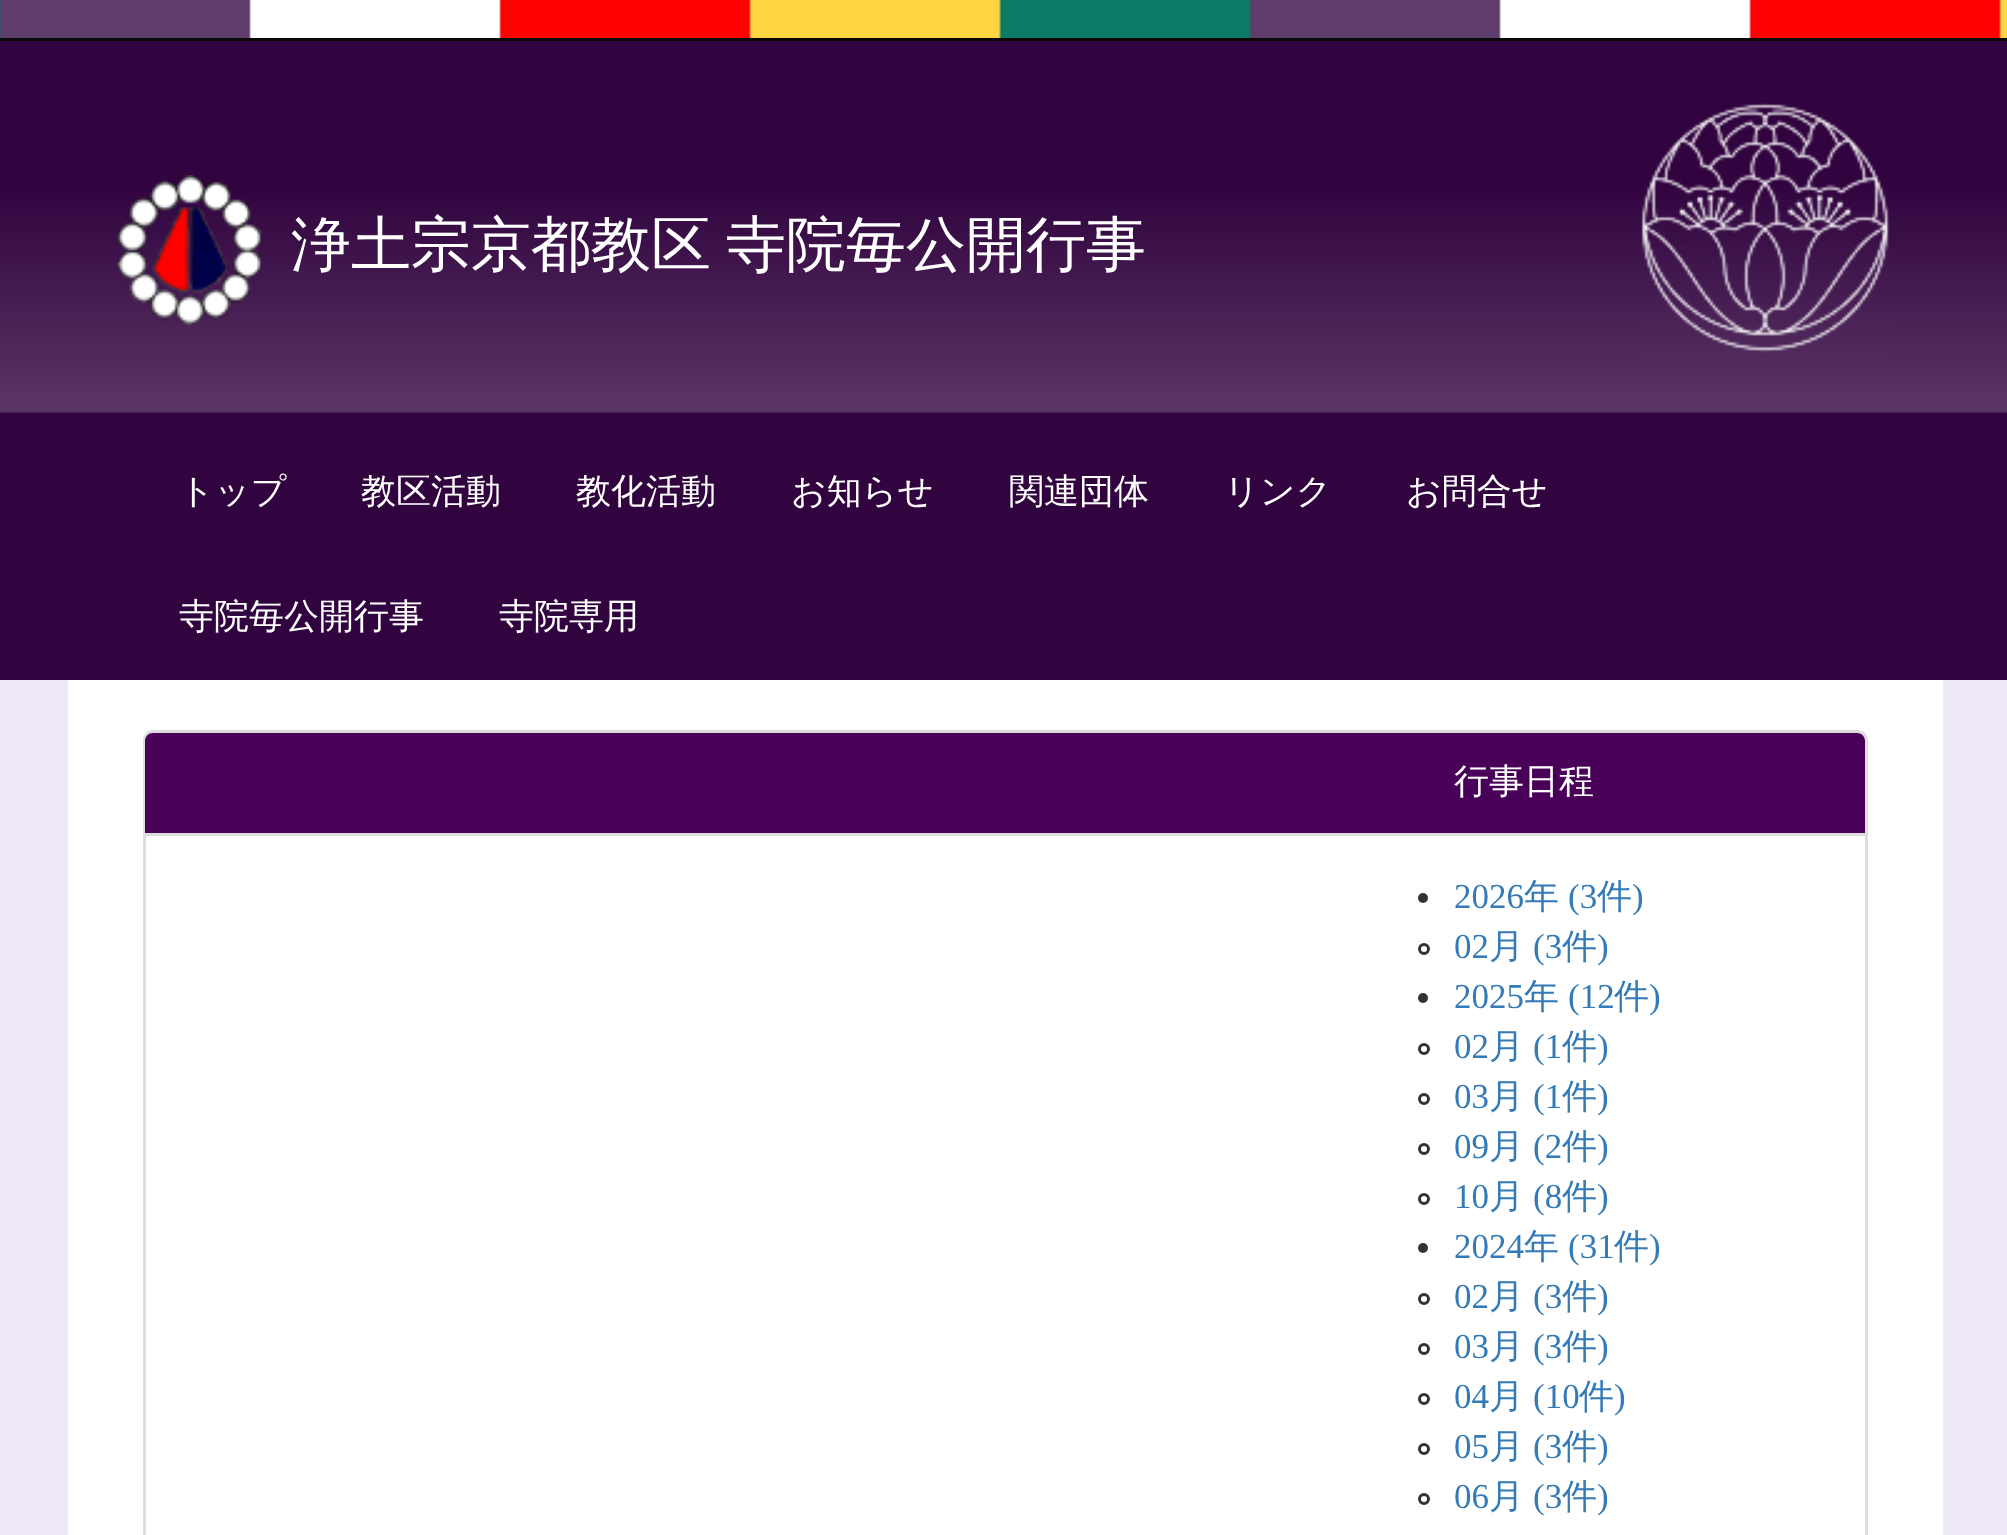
<svg xmlns="http://www.w3.org/2000/svg" xmlns:xlink="http://www.w3.org/1999/xlink" width="2007" height="1535" viewBox="0 0 2007 1535">
<style>
.cls-1{font:500 60px WenQuanYi Zen Hei;fill:#ffffff}
.cls-2{font:500 35px WenQuanYi Zen Hei;fill:#ffffff}
.cls-3{font:35px Liberation Serif;fill:#337ab7}
.cls-4{font:500 35px WenQuanYi Zen Hei;fill:#337ab7}
</style>
<rect width="100%" height="100%" fill="#efe8f7"/>
<image xlink:href="image0.png" x="0" y="0" width="2007" height="38"/>
<rect fill="#080808" x="0" y="38" width="2007" height="3"/>
<image xlink:href="image1.png" x="0" y="41" width="2007" height="389"/>
<image xlink:href="image2.png" x="1641" y="102" width="249" height="251"/>
<image xlink:href="image3.png" x="117" y="175" width="146" height="150"/>
<rect fill="#31043f" x="0" y="430" width="2007" height="250"/>
<rect fill="#ffffff" x="68" y="680" width="1875" height="855"/>
<rect fill="none" stroke="#dddddd" stroke-width="3" x="144.5" y="731.5" width="1722" height="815" rx="8.5"/>
<path fill="#480058" d="M153 733H1857C1861.5 733 1865 736.5 1865 741V835H145V741C145 736.5 148.5 733 153 733Z"/>
<rect fill="#dddddd" x="145" y="833" width="1720" height="3"/>
<circle fill="#333333" cx="1423" cy="898" r="5"/>
<circle fill="none" stroke="#333333" stroke-width="3" cx="1424" cy="949" r="4.5"/>
<circle fill="#333333" cx="1423" cy="998" r="5"/>
<circle fill="none" stroke="#333333" stroke-width="3" cx="1424" cy="1049" r="4.5"/>
<circle fill="none" stroke="#333333" stroke-width="3" cx="1424" cy="1099" r="4.5"/>
<circle fill="none" stroke="#333333" stroke-width="3" cx="1424" cy="1149" r="4.5"/>
<circle fill="none" stroke="#333333" stroke-width="3" cx="1424" cy="1199" r="4.5"/>
<circle fill="#333333" cx="1423" cy="1248" r="5"/>
<circle fill="none" stroke="#333333" stroke-width="3" cx="1424" cy="1299" r="4.5"/>
<circle fill="none" stroke="#333333" stroke-width="3" cx="1424" cy="1349" r="4.5"/>
<circle fill="none" stroke="#333333" stroke-width="3" cx="1424" cy="1399" r="4.5"/>
<circle fill="none" stroke="#333333" stroke-width="3" cx="1424" cy="1449" r="4.5"/>
<circle fill="none" stroke="#333333" stroke-width="3" cx="1424" cy="1499" r="4.5"/>
<text class="cls-1" x="291" y="265" word-spacing="-3">浄土宗京都教区 寺院毎公開行事</text>
<text class="cls-2" x="179" y="503">トップ</text>
<text class="cls-2" x="361" y="503">教区活動</text>
<text class="cls-2" x="576" y="503">教化活動</text>
<text class="cls-2" x="791" y="503">お知らせ</text>
<text class="cls-2" x="1009" y="503">関連団体</text>
<text class="cls-2" x="1224" y="503">リンク</text>
<text class="cls-2" x="1406" y="503">お問合せ</text>
<text class="cls-2" x="179" y="628">寺院毎公開行事</text>
<text class="cls-2" x="499" y="628">寺院専用</text>
<text class="cls-2" x="1454" y="793">行事日程</text>
<text class="cls-3" x="1454" y="908">2026</text>
<text class="cls-4" x="1524" y="908">年</text>
<text class="cls-3" x="1568" y="908">(3</text>
<text class="cls-4" x="1597" y="908">件</text>
<text class="cls-3" x="1632" y="908">)</text>
<text class="cls-3" x="1454" y="958">02</text>
<text class="cls-4" x="1489" y="958">月</text>
<text class="cls-3" x="1533" y="958">(3</text>
<text class="cls-4" x="1562" y="958">件</text>
<text class="cls-3" x="1597" y="958">)</text>
<text class="cls-3" x="1454" y="1008">2025</text>
<text class="cls-4" x="1524" y="1008">年</text>
<text class="cls-3" x="1568" y="1008">(12</text>
<text class="cls-4" x="1614" y="1008">件</text>
<text class="cls-3" x="1649" y="1008">)</text>
<text class="cls-3" x="1454" y="1058">02</text>
<text class="cls-4" x="1489" y="1058">月</text>
<text class="cls-3" x="1533" y="1058">(1</text>
<text class="cls-4" x="1562" y="1058">件</text>
<text class="cls-3" x="1597" y="1058">)</text>
<text class="cls-3" x="1454" y="1108">03</text>
<text class="cls-4" x="1489" y="1108">月</text>
<text class="cls-3" x="1533" y="1108">(1</text>
<text class="cls-4" x="1562" y="1108">件</text>
<text class="cls-3" x="1597" y="1108">)</text>
<text class="cls-3" x="1454" y="1158">09</text>
<text class="cls-4" x="1489" y="1158">月</text>
<text class="cls-3" x="1533" y="1158">(2</text>
<text class="cls-4" x="1562" y="1158">件</text>
<text class="cls-3" x="1597" y="1158">)</text>
<text class="cls-3" x="1454" y="1208">10</text>
<text class="cls-4" x="1489" y="1208">月</text>
<text class="cls-3" x="1533" y="1208">(8</text>
<text class="cls-4" x="1562" y="1208">件</text>
<text class="cls-3" x="1597" y="1208">)</text>
<text class="cls-3" x="1454" y="1258">2024</text>
<text class="cls-4" x="1524" y="1258">年</text>
<text class="cls-3" x="1568" y="1258">(31</text>
<text class="cls-4" x="1614" y="1258">件</text>
<text class="cls-3" x="1649" y="1258">)</text>
<text class="cls-3" x="1454" y="1308">02</text>
<text class="cls-4" x="1489" y="1308">月</text>
<text class="cls-3" x="1533" y="1308">(3</text>
<text class="cls-4" x="1562" y="1308">件</text>
<text class="cls-3" x="1597" y="1308">)</text>
<text class="cls-3" x="1454" y="1358">03</text>
<text class="cls-4" x="1489" y="1358">月</text>
<text class="cls-3" x="1533" y="1358">(3</text>
<text class="cls-4" x="1562" y="1358">件</text>
<text class="cls-3" x="1597" y="1358">)</text>
<text class="cls-3" x="1454" y="1408">04</text>
<text class="cls-4" x="1489" y="1408">月</text>
<text class="cls-3" x="1533" y="1408">(10</text>
<text class="cls-4" x="1579" y="1408">件</text>
<text class="cls-3" x="1614" y="1408">)</text>
<text class="cls-3" x="1454" y="1458">05</text>
<text class="cls-4" x="1489" y="1458">月</text>
<text class="cls-3" x="1533" y="1458">(3</text>
<text class="cls-4" x="1562" y="1458">件</text>
<text class="cls-3" x="1597" y="1458">)</text>
<text class="cls-3" x="1454" y="1508">06</text>
<text class="cls-4" x="1489" y="1508">月</text>
<text class="cls-3" x="1533" y="1508">(3</text>
<text class="cls-4" x="1562" y="1508">件</text>
<text class="cls-3" x="1597" y="1508">)</text>
</svg>
